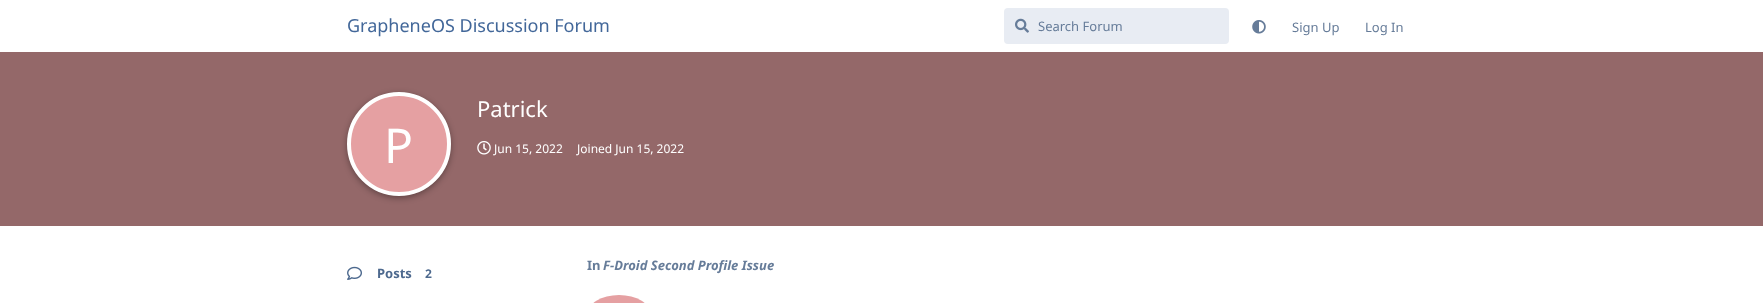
<svg xmlns="http://www.w3.org/2000/svg" xmlns:xlink="http://www.w3.org/1999/xlink" width="1763" height="303" viewBox="0 0 1763 303">
<style>
.cls-1{font:18px Noto Sans;fill:#426799}
.cls-2{font:13px Noto Sans;fill:#667c99}
.cls-3{font:22px Noto Sans;fill:#ffffff}
.cls-4{font:48px Noto Sans;fill:#ffffff}
.cls-5{font:12px Noto Sans;fill:#ffffff}
.cls-6{font:bold 13px Noto Sans;fill:#4d698e}
.cls-7{font:bold 12px Noto Sans;fill:#4d698e}
.cls-8{font:bold 13px Noto Sans;fill:#667c99}
.cls-9{font:italic bold 13px Noto Sans;fill:#667c99}
</style>
<rect width="100%" height="100%" fill="#ffffff"/>
<rect fill="#e8ecf3" x="1004" y="8" width="225" height="36" rx="4"/>
<image xlink:href="image0.png" x="1015" y="18" width="14" height="15"/>
<image xlink:href="image1.png" x="1252" y="20" width="14" height="14"/>
<rect fill="#946869" x="0" y="52" width="1763" height="174"/>
<rect fill="#000000" fill-opacity="0.35" filter="blur(3px)" x="347" y="94" width="104" height="104" rx="52"/>
<circle fill="#e5a0a2" stroke="#ffffff" stroke-width="4" cx="399" cy="144" r="50"/>
<image xlink:href="image2.png" x="477" y="141" width="14" height="14"/>
<image xlink:href="image3.png" x="347" y="266" width="15" height="14"/>
<rect fill="#e5a0a2" x="587" y="295" width="64" height="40" rx="32"/>
<text class="cls-1" x="347" y="32">GrapheneOS Discussion Forum</text>
<text class="cls-2" x="1038" y="31">Search Forum</text>
<text class="cls-2" x="1292" y="32">Sign Up</text>
<text class="cls-2" x="1365" y="32">Log In</text>
<text class="cls-3" x="477" y="117">Patrick</text>
<text class="cls-4" x="384" y="163">P</text>
<text class="cls-5" x="494" y="153">Jun 15, 2022</text>
<text class="cls-5" x="577" y="153">Joined Jun 15, 2022</text>
<text class="cls-6" x="377" y="278">Posts</text>
<text class="cls-7" x="425" y="278">2</text>
<text class="cls-8" x="587" y="270">In</text>
<text class="cls-9" x="603" y="270">F-Droid Second Profile Issue</text>
</svg>
